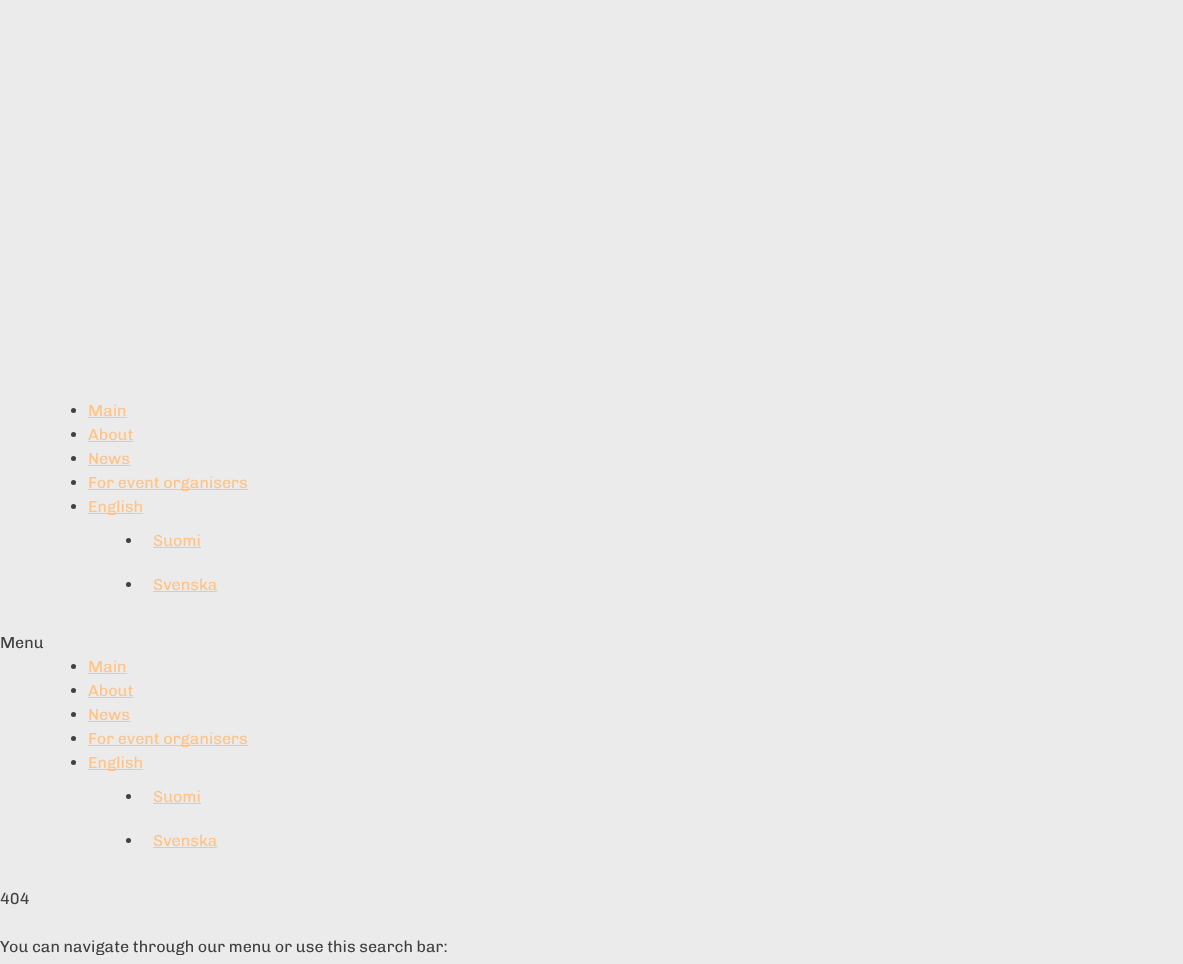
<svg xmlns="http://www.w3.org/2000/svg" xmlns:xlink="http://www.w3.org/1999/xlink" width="1183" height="964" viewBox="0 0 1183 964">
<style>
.cls-1{font:16px Chivo;fill:#ffc386}
.cls-2{font:16px Chivo;fill:#404040}
</style>
<rect width="100%" height="100%" fill="#ebebeb"/>
<circle fill="#404040" cx="73.5" cy="410.5" r="2.5"/>
<rect fill="#ffc386" x="88" y="417" width="39" height="1"/>
<circle fill="#404040" cx="73.5" cy="434.5" r="2.5"/>
<rect fill="#ffc386" x="88" y="441" width="45" height="1"/>
<circle fill="#404040" cx="73.5" cy="458.5" r="2.5"/>
<rect fill="#ffc386" x="88" y="465" width="42" height="1"/>
<circle fill="#404040" cx="73.5" cy="482.5" r="2.5"/>
<rect fill="#ffc386" x="88" y="489" width="160" height="1"/>
<circle fill="#404040" cx="73.5" cy="506.5" r="2.5"/>
<rect fill="#ffc386" x="88" y="513" width="55" height="1"/>
<circle fill="#404040" cx="128.5" cy="540.5" r="2.5"/>
<rect fill="#ffc386" x="153" y="547" width="48" height="1"/>
<circle fill="#404040" cx="128.5" cy="584.5" r="2.5"/>
<rect fill="#ffc386" x="153" y="591" width="64" height="1"/>
<circle fill="#404040" cx="73.5" cy="666.5" r="2.5"/>
<rect fill="#ffc386" x="88" y="673" width="39" height="1"/>
<circle fill="#404040" cx="73.5" cy="690.5" r="2.5"/>
<rect fill="#ffc386" x="88" y="697" width="45" height="1"/>
<circle fill="#404040" cx="73.5" cy="714.5" r="2.5"/>
<rect fill="#ffc386" x="88" y="721" width="42" height="1"/>
<circle fill="#404040" cx="73.5" cy="738.5" r="2.5"/>
<rect fill="#ffc386" x="88" y="745" width="160" height="1"/>
<circle fill="#404040" cx="73.5" cy="762.5" r="2.5"/>
<rect fill="#ffc386" x="88" y="769" width="55" height="1"/>
<circle fill="#404040" cx="128.5" cy="796.5" r="2.5"/>
<rect fill="#ffc386" x="153" y="803" width="48" height="1"/>
<circle fill="#404040" cx="128.5" cy="840.5" r="2.5"/>
<rect fill="#ffc386" x="153" y="847" width="64" height="1"/>
<text class="cls-1"><tspan x="88" y="416">Main</tspan><tspan x="88" y="440">About</tspan><tspan x="88" y="464">News</tspan><tspan x="88" y="488">For event organisers</tspan><tspan x="88" y="512">English</tspan></text>
<text class="cls-1" x="153" y="546">Suomi</text>
<text class="cls-1" x="153" y="590">Svenska</text>
<text class="cls-2" x="0" y="648">Menu</text>
<text class="cls-1"><tspan x="88" y="672">Main</tspan><tspan x="88" y="696">About</tspan><tspan x="88" y="720">News</tspan><tspan x="88" y="744">For event organisers</tspan><tspan x="88" y="768">English</tspan></text>
<text class="cls-1" x="153" y="802">Suomi</text>
<text class="cls-1" x="153" y="846">Svenska</text>
<text class="cls-2" x="0" y="904">404</text>
<text class="cls-2" x="0" y="952">You can navigate through our menu or use this search bar:</text>
</svg>
